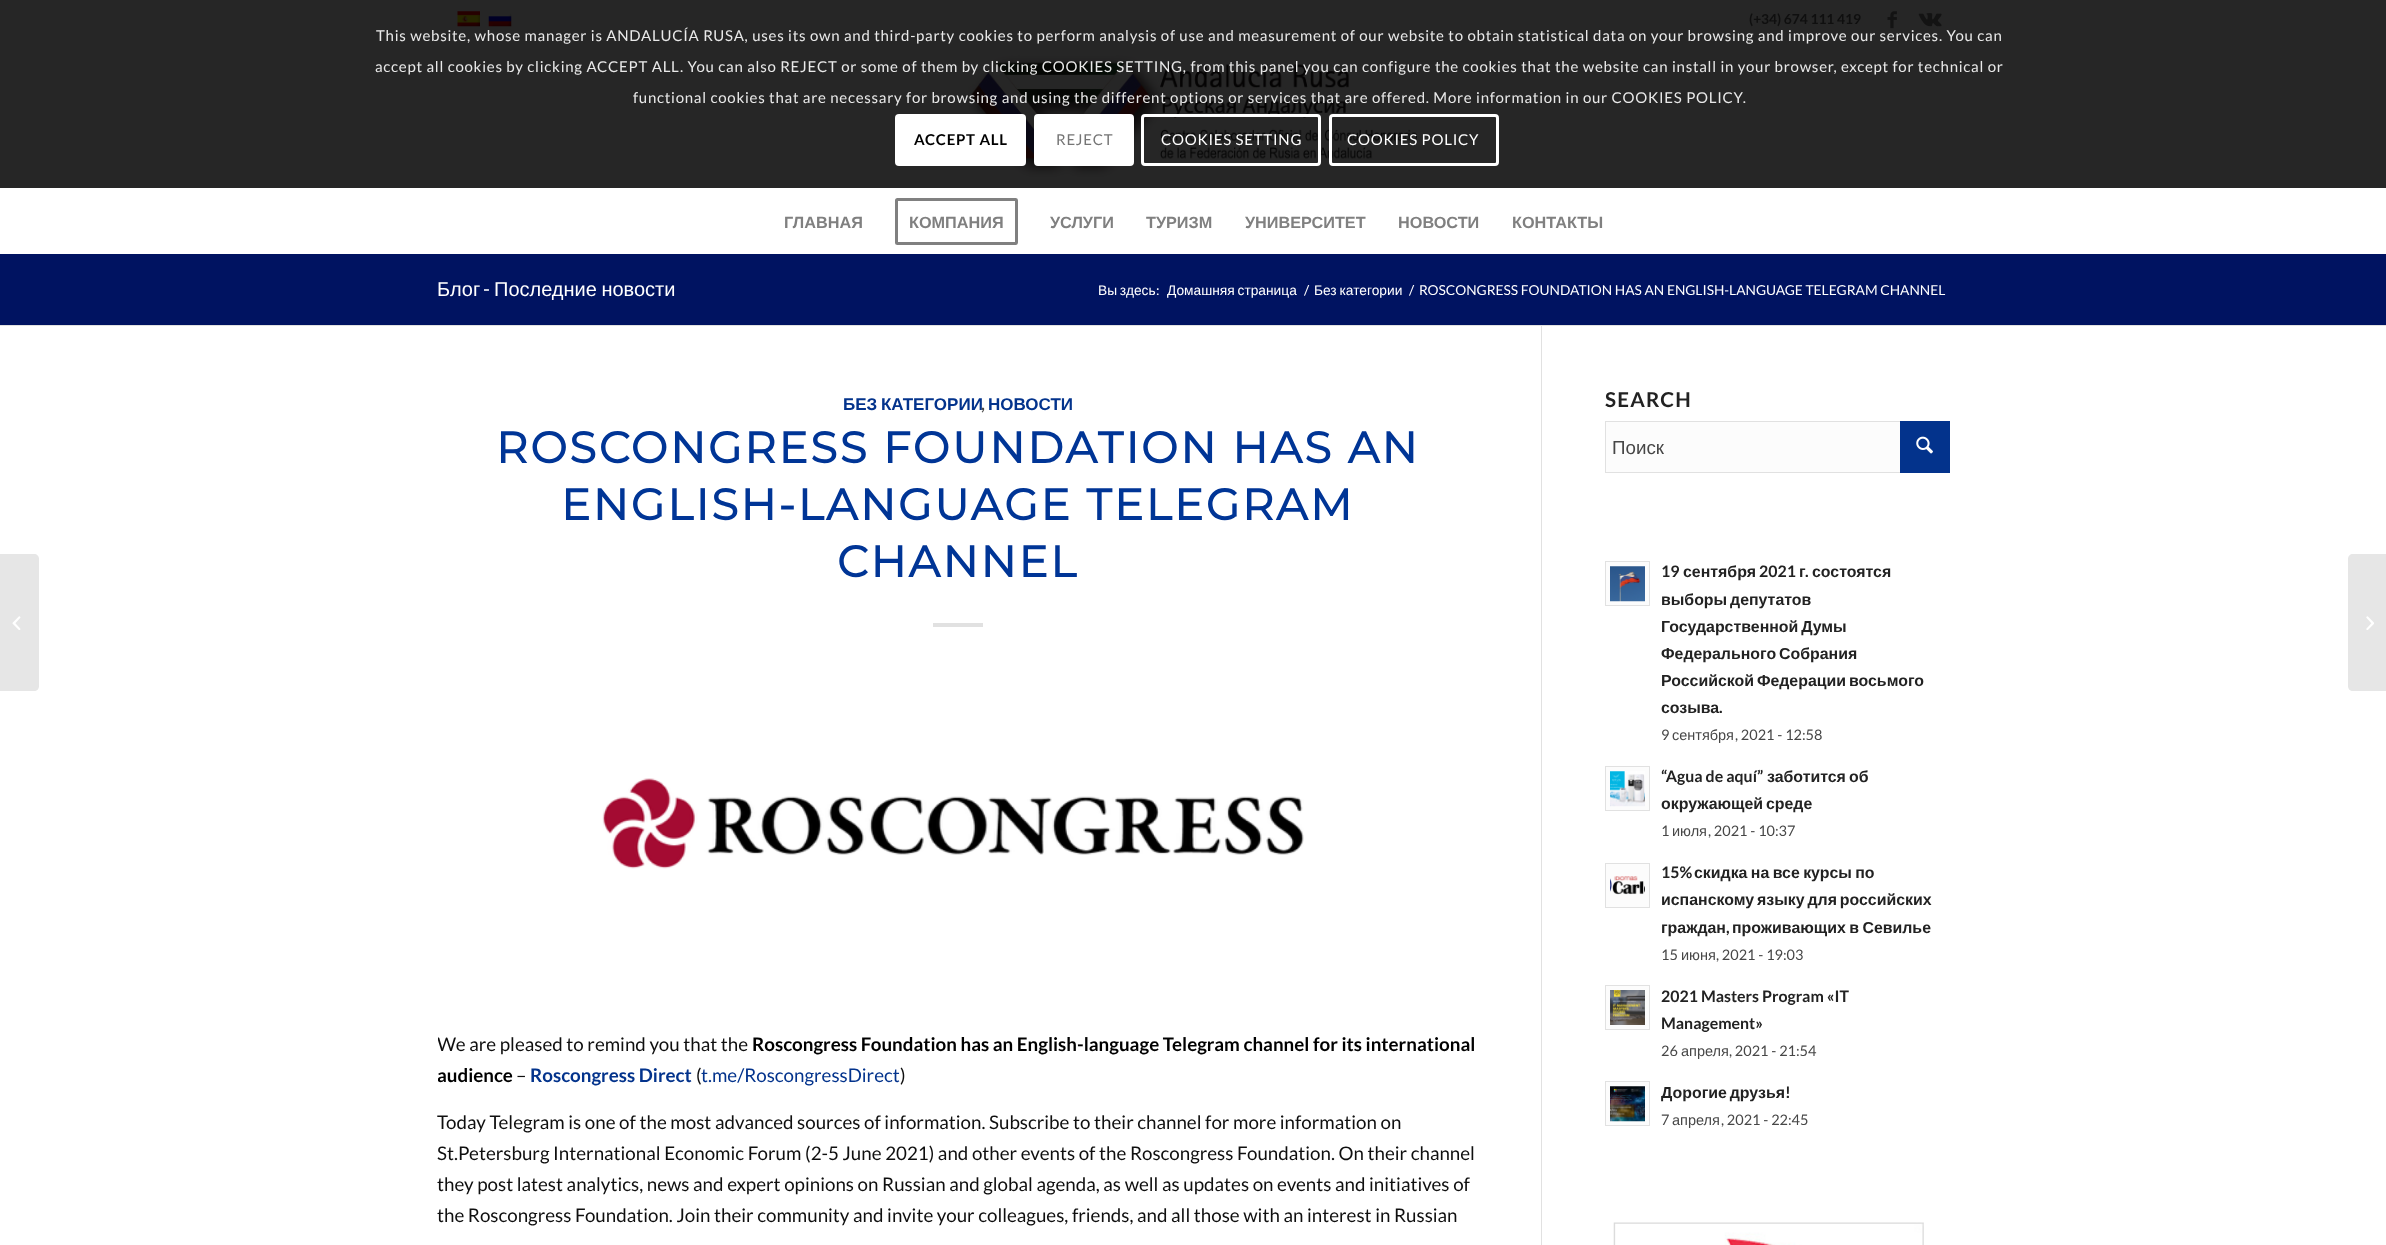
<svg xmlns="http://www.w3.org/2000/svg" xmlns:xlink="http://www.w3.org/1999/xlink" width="2386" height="1245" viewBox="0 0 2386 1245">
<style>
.cls-1{font:bold 13.75px Lato;fill:#0f0f0f}
.cls-2{font:bold 16.25px Liberation Sans;fill:#808080}
.cls-3{font:20px Liberation Sans;fill:#ffffff}
.cls-4{font:20px Lato;fill:#ffffff}
.cls-5{font:13.75px Liberation Sans;fill:#ffffff}
.cls-6{font:13.75px Lato;fill:#ffffff}
.cls-7{font:bold 17px Liberation Sans;fill:#03338c}
.cls-8{font:bold 17px Lato;fill:#474747}
.cls-9{font:bold 43.75px Montserrat;letter-spacing:2.5px;fill:#003596}
.cls-10{font:18.75px Lato;fill:#0f0f0f}
.cls-11{font:bold 18.75px Lato;fill:#000000}
.cls-12{font:bold 18.75px Lato;fill:#03338c}
.cls-13{font:18.75px Lato;fill:#03338c}
.cls-14{font:bold 20.5px Lato;letter-spacing:1.25px;fill:#222222}
.cls-15{font:18.75px Liberation Sans;fill:#474747}
.cls-16{font:bold 15.9px Lato;fill:#222222}
.cls-17{font:bold 15.9px Liberation Sans;fill:#222222}
.cls-18{font:14.5px Lato;fill:#474747}
.cls-19{font:14.5px Liberation Sans;fill:#474747}
.cls-20{font:15px Lato;letter-spacing:0.75px;fill:#e9e9e9}
.cls-21{font:bold 15px Lato;letter-spacing:0.75px;fill:#000000}
.cls-22{font:15px Lato;letter-spacing:0.75px;fill:#757575}
.cls-23{font:15px Lato;letter-spacing:0.75px;fill:#ffffff}
</style>
<defs>
<clipPath id="clip1"><rect x="438" y="389" width="1103" height="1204"/></clipPath>
</defs>
<rect width="100%" height="100%" fill="#ffffff"/>
<rect fill="#262626" x="0" y="0" width="2386" height="188"/>
<image xlink:href="image0.png" x="457" y="11" width="23" height="16"/>
<image xlink:href="image1.png" x="488" y="13" width="24" height="14"/>
<image xlink:href="image2.png" x="1887" y="11" width="10" height="18"/>
<image xlink:href="image3.png" x="1918" y="13" width="24" height="14"/>
<image xlink:href="image4.png" x="967" y="55" width="452" height="122"/>
<rect fill="none" stroke="#808080" stroke-width="3" x="896.5" y="199.5" width="120" height="44" rx="1"/>
<path fill="#e6e6e6" d="M0 554H34C37 554 39 556 39 559V686C39 689 37 691 34 691H0Z"/>
<image xlink:href="image5.png" x="12" y="616" width="9" height="14"/>
<rect fill="#001361" x="0" y="254" width="2386" height="71"/>
<rect fill="#e1e1e1" x="0" y="325" width="2386" height="1"/>
<rect fill="#e1e1e1" x="1541" y="326" width="1" height="919"/>
<rect fill="#e1e1e1" x="933" y="623" width="50" height="4"/>
<image xlink:href="image6.png" x="602" y="778" width="702" height="91"/>
<rect fill="#fcfcfc" x="1606" y="422" width="294" height="50"/>
<rect fill="none" stroke="#e1e1e1" x="1605.5" y="421.5" width="344" height="51"/>
<rect fill="#03338c" x="1900" y="421" width="50" height="52"/>
<image xlink:href="image7.png" x="1916" y="436" width="17" height="18"/>
<rect fill="#fcfcfc" stroke="#e1e1e1" x="1605.5" y="561.5" width="44" height="44"/>
<image xlink:href="image8.png" x="1610" y="566" width="35" height="36"/>
<rect fill="#fcfcfc" stroke="#e1e1e1" x="1605.5" y="766.5" width="44" height="44"/>
<image xlink:href="image9.png" x="1610" y="771" width="35" height="36"/>
<rect fill="#fcfcfc" stroke="#e1e1e1" x="1605.5" y="863.5" width="44" height="44"/>
<image xlink:href="image10.png" x="1610" y="876" width="35" height="19"/>
<rect fill="#fcfcfc" stroke="#e1e1e1" x="1605.5" y="985.5" width="44" height="44"/>
<image xlink:href="image11.png" x="1610" y="990" width="35" height="35"/>
<rect fill="#fcfcfc" stroke="#e1e1e1" x="1605.5" y="1081.5" width="44" height="44"/>
<image xlink:href="image12.png" x="1610" y="1086" width="35" height="36"/>
<image xlink:href="image13.png" x="1613" y="1222" width="311" height="23"/>
<path fill="#e6e6e6" d="M2353 554H2386V691H2353C2350 691 2348 689 2348 686V559C2348 556 2350 554 2353 554Z"/>
<image xlink:href="image14.png" x="2366" y="616" width="8" height="14"/>
<rect fill="#ffffff" x="895" y="114" width="131" height="52" rx="4"/>
<rect fill="#ffffff" stroke="#ffffff" stroke-width="3" x="1035.5" y="115.5" width="97" height="49" rx="2.5"/>
<rect fill="none" stroke="#ffffff" stroke-width="3" x="1142.5" y="115.5" width="177" height="49" rx="2.5"/>
<rect fill="none" stroke="#ffffff" stroke-width="3" x="1330.5" y="115.5" width="167" height="49" rx="2.5"/>
<text class="cls-1" x="1749" y="24">(+34) 674 111 419</text>
<text class="cls-2" x="784" y="228">ГЛАВНАЯ</text>
<text class="cls-2" x="909" y="228">КОМПАНИЯ</text>
<text class="cls-2" x="1050" y="228">УСЛУГИ</text>
<text class="cls-2" x="1146" y="228">ТУРИЗМ</text>
<text class="cls-2" x="1245" y="228">УНИВЕРСИТЕТ</text>
<text class="cls-2" x="1398" y="228">НОВОСТИ</text>
<text class="cls-2" x="1512" y="228">КОНТАКТЫ</text>
<text class="cls-3" x="437" y="296">Блог</text>
<text class="cls-4" x="483" y="296">-</text>
<text class="cls-3" x="494" y="296" word-spacing="-1">Последние новости</text>
<text class="cls-5" x="1098" y="295" word-spacing="-1">Вы здесь</text>
<text class="cls-6" x="1156" y="295">:</text>
<text class="cls-5" x="1167" y="295" word-spacing="-1">Домашняя страница</text>
<text class="cls-6" x="1304" y="295">/</text>
<text class="cls-5" x="1314" y="295" word-spacing="-1">Без категории</text>
<text class="cls-6" x="1409" y="295">/</text>
<text class="cls-6" x="1419" y="295">ROSCONGRESS FOUNDATION HAS AN ENGLISH-LANGUAGE TELEGRAM CHANNEL</text>
<text class="cls-7" x="843" y="410" word-spacing="-1">БЕЗ КАТЕГОРИИ</text>
<text class="cls-8" x="981" y="410">,</text>
<text class="cls-7" x="988" y="410">НОВОСТИ</text>
<text class="cls-9" x="496" y="463">ROSCONGRESS FOUNDATION HAS AN</text>
<text class="cls-9" x="561" y="520">ENGLISH-LANGUAGE TELEGRAM</text>
<text class="cls-9" x="837" y="577">CHANNEL</text>
<g clip-path="url(#clip1)">
<text class="cls-10" x="437" y="1051">We are pleased to remind you that the</text>
</g>
<text class="cls-11" x="752" y="1051">Roscongress Foundation has an English-language Telegram channel for its international</text>
<g clip-path="url(#clip1)">
<text class="cls-11" x="437" y="1082">audience</text>
</g>
<text class="cls-10" x="516" y="1082">–</text>
<text class="cls-12" x="530" y="1082">Roscongress Direct</text>
<text class="cls-10" x="696" y="1082">(</text>
<text class="cls-13" x="701" y="1082">t.me/RoscongressDirect</text>
<text class="cls-10" x="900" y="1082">)</text>
<text class="cls-10"><tspan x="437" y="1129">Today Telegram is one of the most advanced sources of information. Subscribe to their channel for more information on</tspan><tspan x="437" y="1160">St.Petersburg International Economic Forum (2-5 June 2021) and other events of the Roscongress Foundation. On their channel</tspan><tspan x="437" y="1191">they post latest analytics, news and expert opinions on Russian and global agenda, as well as updates on events and initiatives of</tspan><tspan x="437" y="1222">the Roscongress Foundation. Join their community and invite your colleagues, friends, and all those with an interest in Russian</tspan></text>
<text class="cls-14" x="1605" y="407">SEARCH</text>
<text class="cls-15" x="1612" y="454">Поиск</text>
<text class="cls-16" x="1661" y="577">19</text>
<text class="cls-17" x="1683" y="577">сентября</text>
<text class="cls-16" x="1759" y="577">2021</text>
<text class="cls-17" x="1799" y="577">г</text>
<text class="cls-16" x="1805" y="577">.</text>
<text class="cls-17" x="1812" y="577">состоятся</text>
<text class="cls-17"><tspan x="1661" y="605" word-spacing="-1.5">выборы депутатов</tspan><tspan x="1661" y="632" word-spacing="-1.5">Государственной Думы</tspan><tspan x="1661" y="659" word-spacing="-1.5">Федерального Собрания</tspan><tspan x="1661" y="686" word-spacing="-1.5">Российской Федерации восьмого</tspan><tspan x="1661" y="713">созыва</tspan></text>
<text class="cls-16" x="1719" y="713">.</text>
<text class="cls-18" x="1661" y="740">9</text>
<text class="cls-19" x="1672" y="740">сентября</text>
<text class="cls-18" x="1735" y="740">, 2021 - 12:58</text>
<text class="cls-16" x="1661" y="782">“Agua de aquí”</text>
<text class="cls-17" x="1767" y="782">заботится</text>
<text class="cls-17" x="1849" y="782">об</text>
<text class="cls-17" x="1661" y="809" word-spacing="-1.5">окружающей среде</text>
<text class="cls-18" x="1661" y="836">1</text>
<text class="cls-19" x="1672" y="836">июля</text>
<text class="cls-18" x="1708" y="836">, 2021 - 10:37</text>
<text class="cls-16" x="1661" y="878">15%</text>
<text class="cls-17" x="1694" y="878" word-spacing="-1">скидка на все курсы по</text>
<text class="cls-17"><tspan x="1661" y="905" word-spacing="-1.5">испанскому языку для российских</tspan><tspan x="1661" y="933">граждан</tspan></text>
<text class="cls-16" x="1726" y="933">,</text>
<text class="cls-17" x="1732" y="933" word-spacing="-1">проживающих в Севилье</text>
<text class="cls-18" x="1661" y="960">15</text>
<text class="cls-19" x="1681" y="960">июня</text>
<text class="cls-18" x="1716" y="960">, 2021 - 19:03</text>
<text class="cls-16"><tspan x="1661" y="1002">2021 Masters Program «IT</tspan><tspan x="1661" y="1029">Management»</tspan></text>
<text class="cls-18" x="1661" y="1056">26</text>
<text class="cls-19" x="1681" y="1056">апреля</text>
<text class="cls-18" x="1729" y="1056">, 2021 - 21:54</text>
<text class="cls-17" x="1661" y="1098" word-spacing="-1.5">Дорогие друзья</text>
<text class="cls-16" x="1785" y="1098">!</text>
<text class="cls-18" x="1661" y="1125">7</text>
<text class="cls-19" x="1672" y="1125">апреля</text>
<text class="cls-18" x="1721" y="1125">, 2021 - 22:45</text>
<text class="cls-20" x="376" y="41">This website, whose manager is ANDALUCÍA RUSA, uses its own and third-party cookies to perform analysis of use and measurement of our website to obtain statistical data on your browsing and improve our services. You can</text>
<text class="cls-20" x="375" y="72">accept all cookies by clicking ACCEPT ALL. You can also REJECT or some of them by clicking COOKIES SETTING, from this panel you can configure the cookies that the website can install in your browser, except for technical or</text>
<text class="cls-20" x="633" y="103">functional cookies that are necessary for browsing and using the different options or services that are offered. More information in our COOKIES POLICY.</text>
<text class="cls-21" x="914" y="145">ACCEPT ALL</text>
<text class="cls-22" x="1056" y="145">REJECT</text>
<text class="cls-23" x="1161" y="145">COOKIES SETTING</text>
<text class="cls-23" x="1347" y="145">COOKIES POLICY</text>
</svg>
